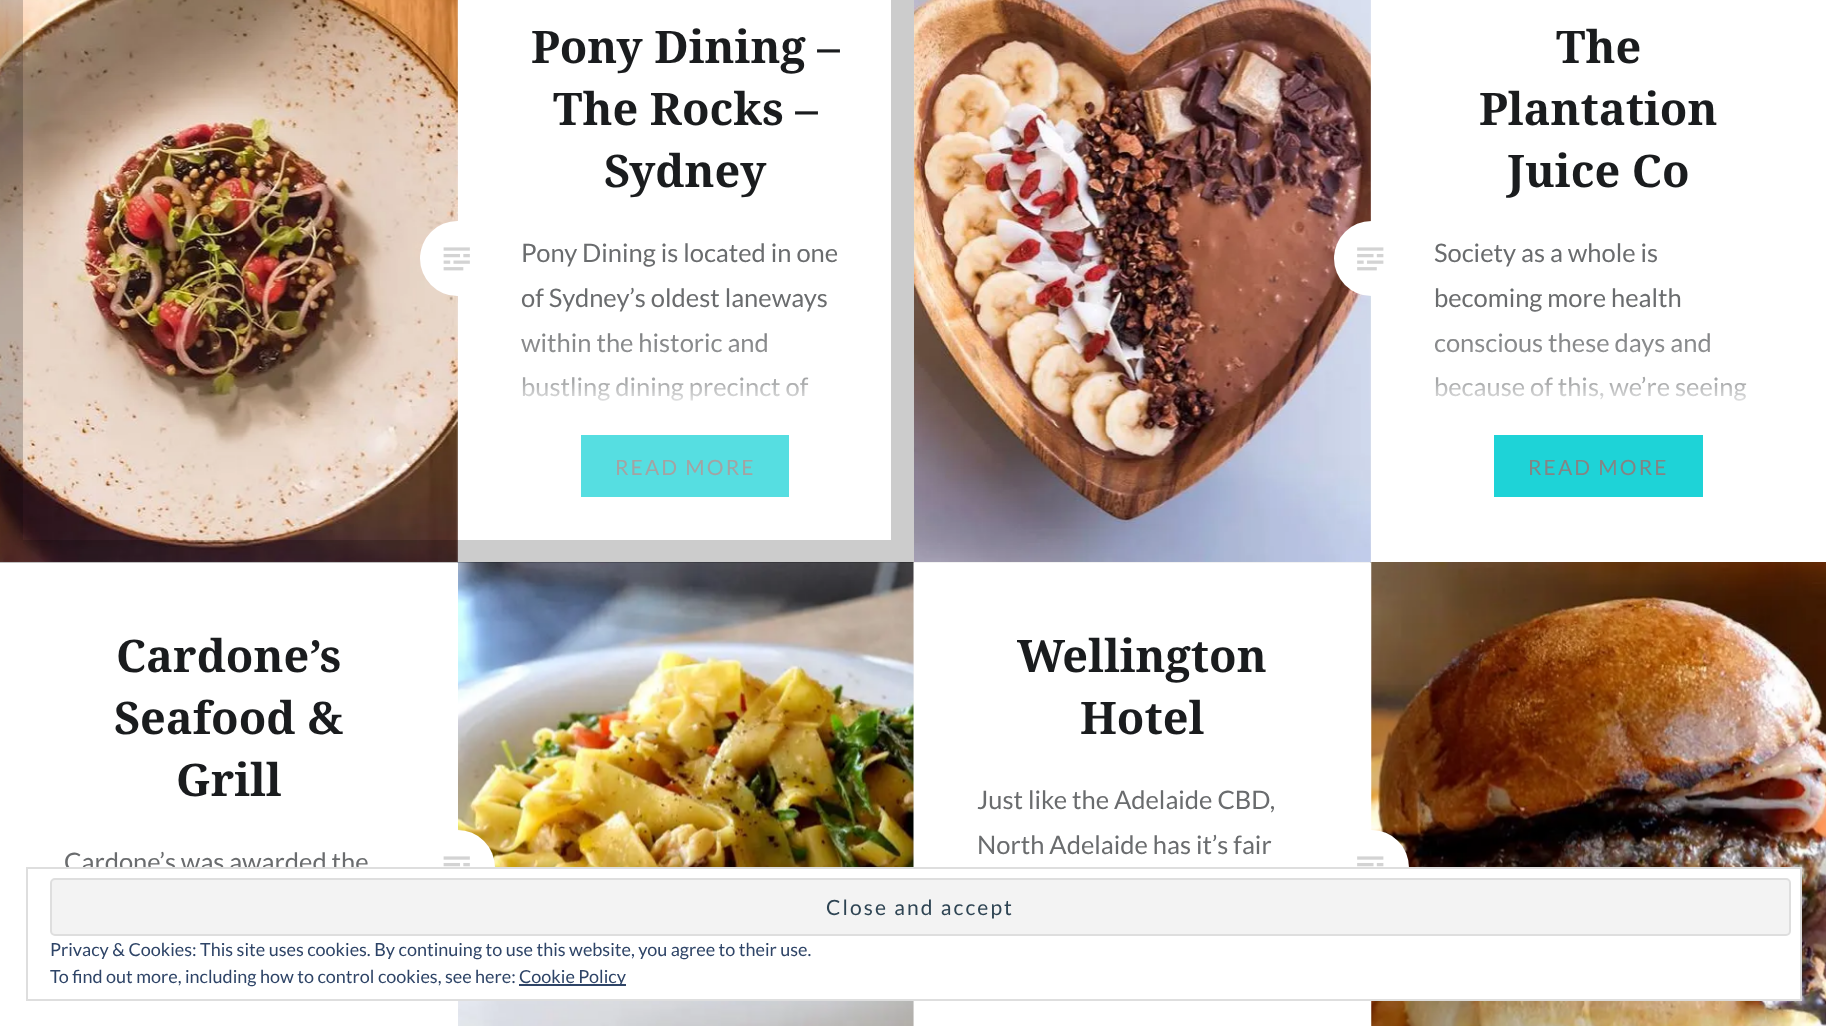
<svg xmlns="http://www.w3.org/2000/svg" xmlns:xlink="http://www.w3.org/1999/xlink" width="1826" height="1026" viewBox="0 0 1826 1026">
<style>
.cls-1{font:bold 45px Noto Serif;fill:#1a1c1e}
.cls-2{font:25.5px Lato;fill:#6a6c6e}
.cls-3{font:21px Lato;letter-spacing:2.1px;fill:#a3a3a3}
.cls-4{font:21px Lato;letter-spacing:2.1px;fill:#848484}
.cls-5{font:21px Lato;letter-spacing:2.1px;fill:#2e4453}
.cls-6{font:18px Lato;fill:#2e4467}
</style>
<defs>
<linearGradient id="g1" gradientUnits="userSpaceOnUse" x1="686" y1="304" x2="686" y2="497"><stop offset="0" stop-color="#ffffff" stop-opacity="0"/><stop offset="1" stop-color="#ffffff"/></linearGradient>
<linearGradient id="g2" gradientUnits="userSpaceOnUse" x1="686" y1="382" x2="686" y2="415"><stop offset="0" stop-color="#ffffff" stop-opacity="0"/><stop offset="1" stop-color="#ffffff"/></linearGradient>
<linearGradient id="g3" gradientUnits="userSpaceOnUse" x1="1599" y1="304" x2="1599" y2="497"><stop offset="0" stop-color="#ffffff" stop-opacity="0"/><stop offset="1" stop-color="#ffffff"/></linearGradient>
<linearGradient id="g4" gradientUnits="userSpaceOnUse" x1="1599" y1="382" x2="1599" y2="415"><stop offset="0" stop-color="#ffffff" stop-opacity="0"/><stop offset="1" stop-color="#ffffff"/></linearGradient>
</defs>
<rect width="100%" height="100%" fill="#ffffff"/>
<rect fill="#f2f2f2" x="0" y="0" width="458" height="563"/>
<image xlink:href="image0.png" x="0" y="0" width="458" height="562"/>
<circle fill="#ffffff" cx="457.5" cy="258.5" r="37.5"/>
<rect fill="#56dee1" x="581" y="435" width="208" height="62"/>
<rect fill="#f2f2f2" x="914" y="0" width="457" height="563"/>
<image xlink:href="image2.png" x="914" y="0" width="457" height="562"/>
<circle fill="#ffffff" cx="1371.5" cy="258.5" r="37.5"/>
<rect fill="#1ed3d7" x="1494" y="435" width="209" height="62"/>
<image xlink:href="image3.png" x="1357" y="247" width="27" height="24"/>
<rect fill="#f2f2f2" x="913" y="563" width="1" height="463"/>
<image xlink:href="image5.png" x="457" y="562" width="457" height="464"/>
<rect fill="#ffffff" x="457" y="563" width="1" height="463"/>
<circle fill="#ffffff" cx="457.5" cy="867.5" r="37.5"/>
<image xlink:href="image4.png" x="443" y="856" width="27" height="11"/>
<image xlink:href="image7.png" x="1370" y="562" width="456" height="464"/>
<rect fill="#ffffff" x="1370" y="563" width="1" height="463"/>
<circle fill="#ffffff" cx="1371.5" cy="867.5" r="37.5"/>
<image xlink:href="image6.png" x="1357" y="856" width="27" height="11"/>
<text class="cls-1" x="531" y="63">Pony Dining –</text>
<text class="cls-1" x="553" y="125">The Rocks –</text>
<text class="cls-1" x="604" y="187">Sydney</text>
<text class="cls-2"><tspan x="521" y="262">Pony Dining is located in one</tspan><tspan x="521" y="307">of Sydney’s oldest laneways</tspan><tspan x="521" y="352">within the historic and</tspan><tspan x="521" y="396">bustling dining precinct of</tspan></text>
<text class="cls-3" x="615" y="475">READ MORE</text>
<rect fill="url(#g1)" x="521" y="308" width="289" height="93"/>
<rect fill="url(#g2)" x="522" y="383" width="286" height="18"/>
<rect fill="none" stroke="#000000" stroke-opacity="0.2" stroke-width="23" x="11.5" y="-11.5" width="891" height="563"/>
<image xlink:href="image1.png" x="443" y="247" width="27" height="24"/>
<text class="cls-1" x="1556" y="63">The</text>
<text class="cls-1" x="1479" y="125">Plantation</text>
<text class="cls-1" x="1507" y="187">Juice Co</text>
<text class="cls-2"><tspan x="1434" y="262">Society as a whole is</tspan><tspan x="1434" y="307">becoming more health</tspan><tspan x="1434" y="352">conscious these days and</tspan><tspan x="1434" y="396">because of this, we’re seeing</tspan></text>
<text class="cls-4" x="1528" y="475">READ MORE</text>
<rect fill="url(#g3)" x="1435" y="308" width="312" height="93"/>
<rect fill="url(#g4)" x="1436" y="383" width="310" height="18"/>
<text class="cls-1" x="116" y="672">Cardone’s</text>
<text class="cls-1" x="114" y="734">Seafood &amp;</text>
<text class="cls-1" x="176" y="796">Grill</text>
<text class="cls-2" x="64" y="871">Cardone’s was awarded the</text>
<text class="cls-1" x="1017" y="672">Wellington</text>
<text class="cls-1" x="1080" y="734">Hotel</text>
<text class="cls-2"><tspan x="977" y="809">Just like the Adelaide CBD,</tspan><tspan x="977" y="854">North Adelaide has it’s fair</tspan></text>
<rect fill="#ffffff" x="68" y="869" width="1732" height="130"/>
<rect fill="none" stroke="#dedede" stroke-width="2" x="27" y="868" width="1774" height="132"/>
<rect fill="#f3f3f3" stroke="#dedede" stroke-width="2" x="51" y="879" width="1739" height="56" rx="4"/>
<text class="cls-5" x="826" y="915">Close and accept</text>
<text class="cls-6"><tspan x="50" y="956">Privacy &amp; Cookies: This site uses cookies. By continuing to use this website, you agree to their use.</tspan><tspan x="50" y="983">To find out more, including how to control cookies, see here:</tspan></text>
<rect fill="#2e4467" x="519" y="984" width="107" height="2"/>
<text class="cls-6" x="519" y="983">Cookie Policy</text>
</svg>
